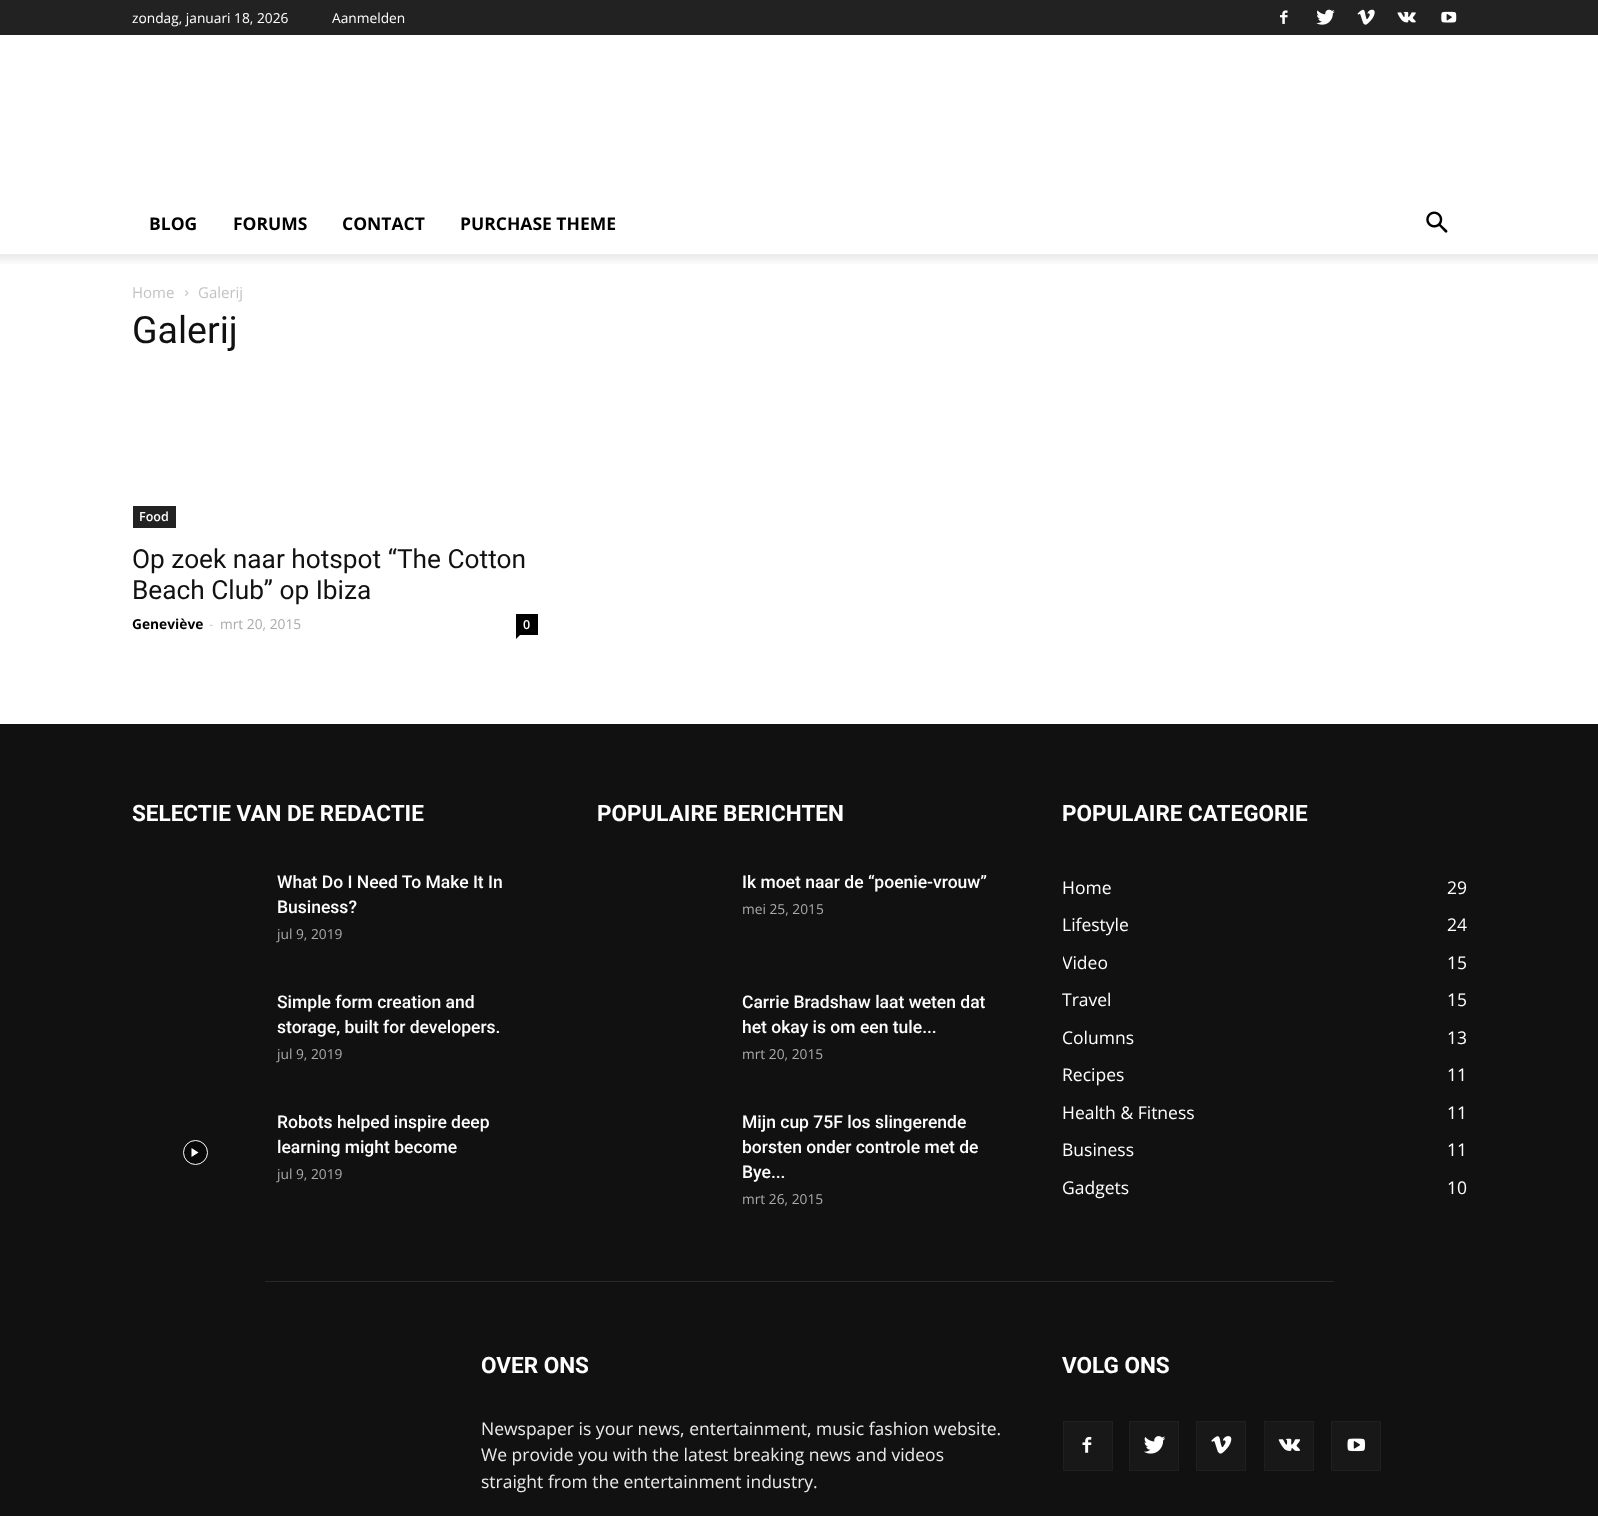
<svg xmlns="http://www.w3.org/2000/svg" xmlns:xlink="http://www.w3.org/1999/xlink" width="1598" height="1516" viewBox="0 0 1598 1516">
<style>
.cls-1{font:13.75px Open Sans;fill:#ffffff}
.cls-2{font:bold 17.5px Open Sans;fill:#000000}
.cls-3{font:15px Open Sans;fill:#c3c3c3}
.cls-4{font:37.5px Roboto;fill:#111111}
.cls-5{font:600 12.5px Open Sans;fill:#ffffff}
.cls-6{font:26.25px Roboto;fill:#111111}
.cls-7{font:bold 13.75px Open Sans;fill:#000000}
.cls-8{font:13.75px Open Sans;fill:#cccccc}
.cls-9{font:13.75px Open Sans;fill:#aaaaaa}
.cls-10{font:bold 22.5px Roboto;fill:#ffffff}
.cls-11{font:500 17.5px Roboto;fill:#ffffff}
.cls-12{font:17.5px Open Sans;fill:#ffffff}
.cls-13{font:17.5px Open Sans;fill:#eaeaea}
</style>
<defs>
<clipPath id="clip1"><rect x="1063" y="793" width="405" height="413"/></clipPath>
</defs>
<rect width="100%" height="100%" fill="#ffffff"/>
<rect fill="#222222" x="0" y="0" width="1598" height="35"/>
<image xlink:href="image0.png" x="1280" y="10" width="8" height="14"/>
<image xlink:href="image1.png" x="1316" y="9" width="19" height="16"/>
<image xlink:href="image2.png" x="1357" y="9" width="18" height="16"/>
<image xlink:href="image3.png" x="1397" y="11" width="19" height="12"/>
<image xlink:href="image4.png" x="1441" y="11" width="16" height="12"/>
<image xlink:href="image5.png" x="1426" y="211" width="22" height="22"/>
<image xlink:href="image6.png" x="0" y="254" width="1598" height="10"/>
<image xlink:href="image7.png" x="185" y="290" width="4" height="6"/>
<rect fill="#222222" x="133" y="506" width="43" height="22"/>
<rect fill="#000000" x="516" y="614" width="22" height="21"/>
<path fill="#000000" d="M516 635H520L516 639Z"/>
<rect fill="#111111" x="0" y="724" width="1598" height="792"/>
<circle fill="#000000" fill-opacity="0.48" stroke="#ffffff" cx="195.5" cy="1152.5" r="12"/>
<path fill="#ffffff" d="M191.5 1148V1157L198.5 1152.5Z"/>
<rect fill="#292929" x="265" y="1281" width="1069" height="1"/>
<rect fill="#181818" x="1064" y="1422" width="48" height="48"/>
<image xlink:href="image8.png" x="1082" y="1436" width="10" height="17"/>
<rect fill="none" stroke="#1f1f1f" x="1063.5" y="1421.5" width="49" height="49"/>
<rect fill="#181818" x="1130" y="1422" width="48" height="48"/>
<image xlink:href="image9.png" x="1144" y="1436" width="22" height="18"/>
<rect fill="none" stroke="#1f1f1f" x="1129.5" y="1421.5" width="49" height="49"/>
<rect fill="#181818" x="1197" y="1422" width="48" height="48"/>
<image xlink:href="image10.png" x="1211" y="1436" width="21" height="18"/>
<rect fill="none" stroke="#1f1f1f" x="1196.5" y="1421.5" width="49" height="49"/>
<rect fill="#181818" x="1265" y="1422" width="48" height="48"/>
<image xlink:href="image11.png" x="1278" y="1438" width="23" height="13"/>
<rect fill="none" stroke="#1f1f1f" x="1264.5" y="1421.5" width="49" height="49"/>
<rect fill="#181818" x="1332" y="1422" width="48" height="48"/>
<image xlink:href="image12.png" x="1347" y="1438" width="18" height="14"/>
<rect fill="none" stroke="#1f1f1f" x="1331.5" y="1421.5" width="49" height="49"/>
<text class="cls-1" x="132" y="23">zondag, januari 18, 2026</text>
<text class="cls-1" x="332" y="23">Aanmelden</text>
<text class="cls-2" x="149" y="230">BLOG</text>
<text class="cls-2" x="233" y="230">FORUMS</text>
<text class="cls-2" x="342" y="230">CONTACT</text>
<text class="cls-2" x="460" y="230">PURCHASE THEME</text>
<text class="cls-3" x="132" y="298">Home</text>
<text class="cls-3" x="198" y="298">Galerij</text>
<text class="cls-4" x="132" y="343">Galerij</text>
<text class="cls-5" x="139" y="521">Food</text>
<text class="cls-6"><tspan x="132" y="568">Op zoek naar hotspot “The Cotton</tspan><tspan x="132" y="599">Beach Club” op Ibiza</tspan></text>
<text class="cls-7" x="132" y="629">Geneviève</text>
<text class="cls-8" x="209" y="629">-</text>
<text class="cls-9" x="220" y="629">mrt 20, 2015</text>
<text class="cls-5" x="523" y="629">0</text>
<text class="cls-10" x="132" y="821">SELECTIE VAN DE REDACTIE</text>
<text class="cls-11"><tspan x="277" y="888">What Do I Need To Make It In</tspan><tspan x="277" y="913">Business?</tspan></text>
<text class="cls-9" x="277" y="939">jul 9, 2019</text>
<text class="cls-11"><tspan x="277" y="1008">Simple form creation and</tspan><tspan x="277" y="1033">storage, built for developers.</tspan></text>
<text class="cls-9" x="277" y="1059">jul 9, 2019</text>
<text class="cls-11"><tspan x="277" y="1128">Robots helped inspire deep</tspan><tspan x="277" y="1153">learning might become</tspan></text>
<text class="cls-9" x="277" y="1179">jul 9, 2019</text>
<text class="cls-10" x="597" y="821">POPULAIRE BERICHTEN</text>
<text class="cls-11" x="742" y="888">Ik moet naar de “poenie-vrouw”</text>
<text class="cls-9" x="742" y="914">mei 25, 2015</text>
<text class="cls-11"><tspan x="742" y="1008">Carrie Bradshaw laat weten dat</tspan><tspan x="742" y="1033">het okay is om een tule...</tspan></text>
<text class="cls-9" x="742" y="1059">mrt 20, 2015</text>
<text class="cls-11"><tspan x="742" y="1128">Mijn cup 75F los slingerende</tspan><tspan x="742" y="1153">borsten onder controle met de</tspan><tspan x="742" y="1178">Bye...</tspan></text>
<text class="cls-9" x="742" y="1204">mrt 26, 2015</text>
<text class="cls-10" x="1062" y="821">POPULAIRE CATEGORIE</text>
<text class="cls-12" x="1062" y="894">Home</text>
<text class="cls-12" x="1447" y="894">29</text>
<text class="cls-12" x="1062" y="931">Lifestyle</text>
<text class="cls-12" x="1447" y="931">24</text>
<g clip-path="url(#clip1)">
<text class="cls-12" x="1062" y="969">Video</text>
</g>
<text class="cls-12" x="1447" y="969">15</text>
<text class="cls-12" x="1062" y="1006">Travel</text>
<text class="cls-12" x="1447" y="1006">15</text>
<text class="cls-12" x="1062" y="1044">Columns</text>
<text class="cls-12" x="1447" y="1044">13</text>
<text class="cls-12" x="1062" y="1081">Recipes</text>
<text class="cls-12" x="1447" y="1081">11</text>
<text class="cls-12" x="1062" y="1119">Health &amp; Fitness</text>
<text class="cls-12" x="1447" y="1119">11</text>
<text class="cls-12" x="1062" y="1156">Business</text>
<text class="cls-12" x="1447" y="1156">11</text>
<text class="cls-12" x="1062" y="1194">Gadgets</text>
<text class="cls-12" x="1447" y="1194">10</text>
<text class="cls-10" x="481" y="1373">OVER ONS</text>
<text class="cls-13"><tspan x="481" y="1435">Newspaper is your news, entertainment, music fashion website.</tspan><tspan x="481" y="1461">We provide you with the latest breaking news and videos</tspan><tspan x="481" y="1488">straight from the entertainment industry.</tspan></text>
<text class="cls-10" x="1062" y="1373">VOLG ONS</text>
</svg>
